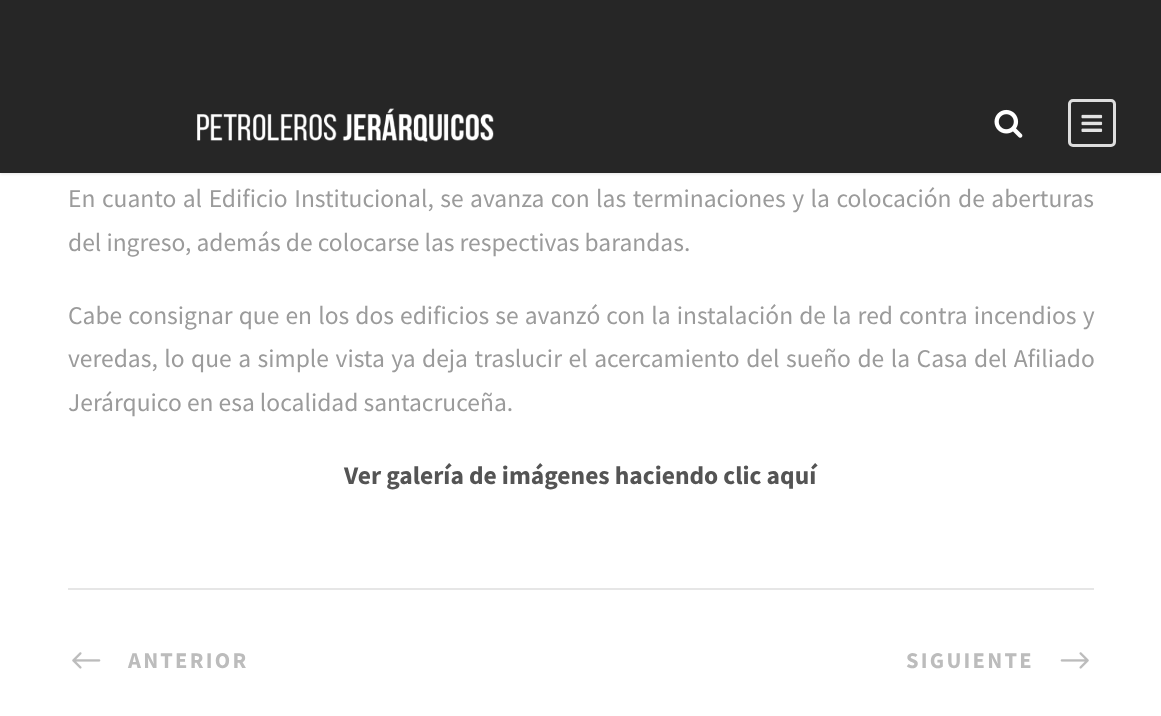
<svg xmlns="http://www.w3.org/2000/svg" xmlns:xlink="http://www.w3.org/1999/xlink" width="1161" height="716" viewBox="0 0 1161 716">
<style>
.cls-1{font:25.5px Source Sans Pro;fill:#9b9b9b}
.cls-2{font:bold 25.5px Source Sans Pro;fill:#545454}
.cls-3{font:bold 22.5px Source Sans Pro;letter-spacing:2.25px;fill:#bcbcbc}
</style>
<rect width="100%" height="100%" fill="#ffffff"/>
<rect fill="#000000" fill-opacity="0.1" filter="blur(1.5px)" x="0" y="2" width="1161" height="172"/>
<rect fill="#262626" x="0" y="0" width="1161" height="173"/>
<image xlink:href="image0.png" x="197" y="108" width="297" height="34"/>
<image xlink:href="image1.png" x="994" y="109" width="29" height="29"/>
<rect fill="none" stroke="#dddddd" stroke-width="3" x="1069.5" y="100.5" width="45" height="45" rx="3.5"/>
<image xlink:href="image2.png" x="1081" y="114" width="22" height="18"/>
<rect fill="#e6e6e6" x="68" y="588" width="1026" height="2"/>
<image xlink:href="image3.png" x="72" y="652" width="29" height="17"/>
<image xlink:href="image4.png" x="1060" y="652" width="29" height="17"/>
<text class="cls-1"><tspan x="68" y="207" word-spacing="1.4">En cuanto al Edificio Institucional, se avanza con las terminaciones y la colocación de aberturas</tspan><tspan x="68" y="251">del ingreso, además de colocarse las respectivas barandas.</tspan></text>
<text class="cls-1"><tspan x="68" y="324" word-spacing="1">Cabe consignar que en los dos edificios se avanzó con la instalación de la red contra incendios y</tspan><tspan x="68" y="367" word-spacing="1.4">veredas, lo que a simple vista ya deja traslucir el acercamiento del sueño de la Casa del Afiliado</tspan><tspan x="68" y="411">Jerárquico en esa localidad santacruceña.</tspan></text>
<text class="cls-2" x="344" y="484">Ver galería de imágenes haciendo clic aquí</text>
<text class="cls-3" x="128" y="668">ANTERIOR</text>
<text class="cls-3" x="906" y="668">SIGUIENTE</text>
</svg>
